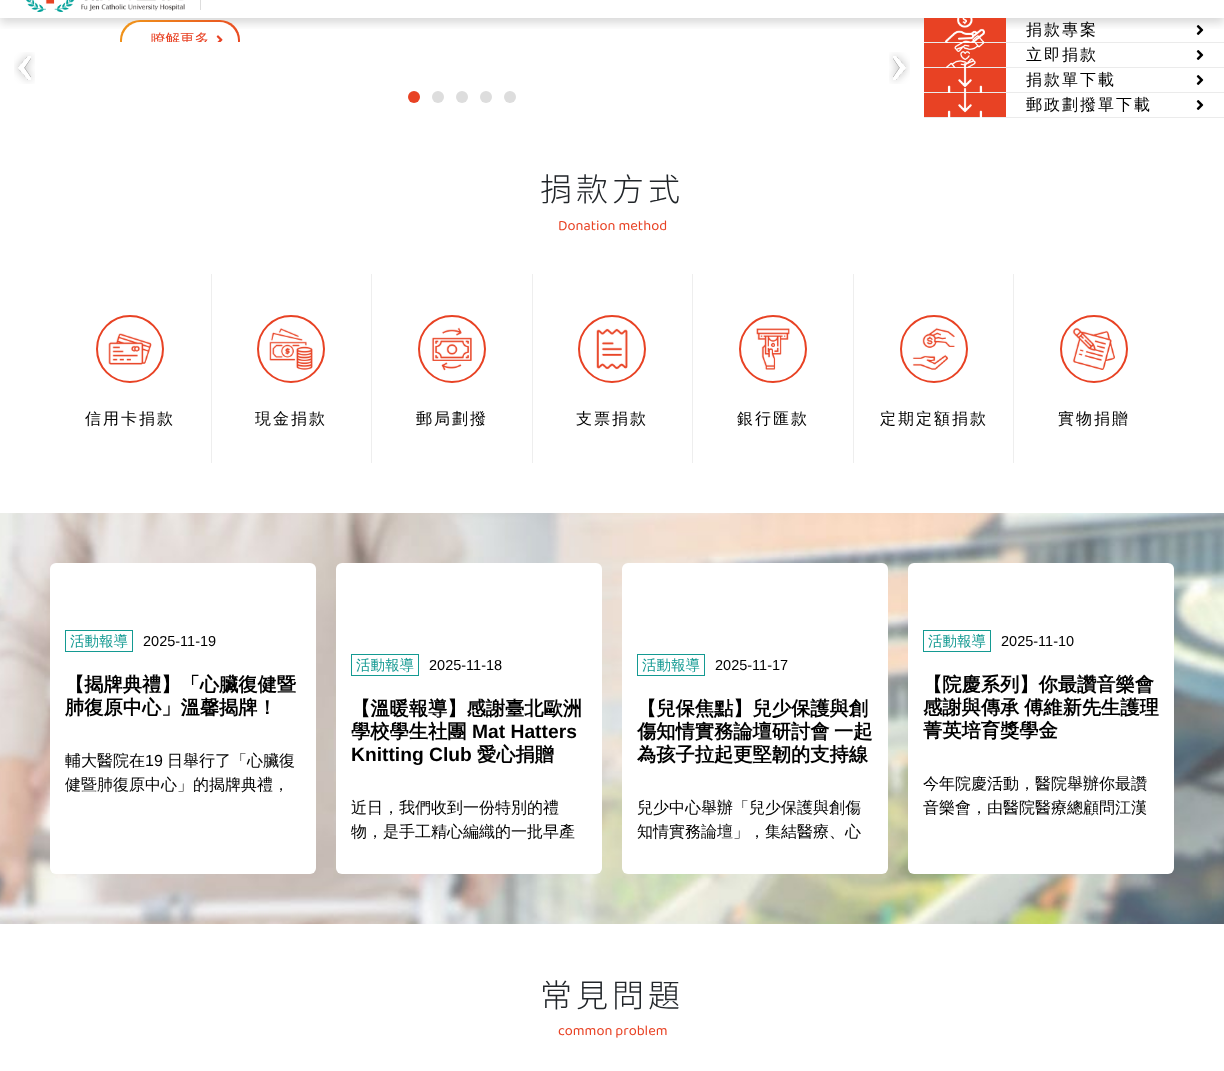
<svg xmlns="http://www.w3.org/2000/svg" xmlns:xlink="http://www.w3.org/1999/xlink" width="1224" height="1071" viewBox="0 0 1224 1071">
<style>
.cls-1{font:500 14.5px WenQuanYi Zen Hei;fill:#e84224}
.cls-2{font:500 16px WenQuanYi Zen Hei;letter-spacing:2px;fill:#000000}
.cls-3{font:300 32px Noto Sans TC;letter-spacing:4px;fill:#212529}
.cls-4{font:14.5px 'Baloo Thambi 2';fill:#e84224}
.cls-5{font:500 14.5px WenQuanYi Zen Hei;fill:#149a92}
.cls-6{font:14.5px Liberation Sans;fill:#000000}
.cls-7{font:bold 19.25px WenQuanYi Zen Hei;fill:#000000}
.cls-8{font:500 16px WenQuanYi Zen Hei;fill:#000000}
.cls-9{font:16px Liberation Sans;fill:#000000}
.cls-10{font:bold 19.25px Liberation Sans;fill:#000000}
</style>
<defs>
<clipPath id="clip1"><rect x="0" y="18" width="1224" height="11"/></clipPath>
<clipPath id="clip2"><rect x="0" y="18" width="924" height="24"/></clipPath>
<linearGradient id="g1" gradientUnits="userSpaceOnUse" x1="234" y1="71" x2="126" y2="9"><stop offset="0" stop-color="#e84224"/><stop offset="1" stop-color="#f09819"/></linearGradient>
</defs>
<rect width="100%" height="100%" fill="#ffffff"/>
<g clip-path="url(#clip1)">
<rect fill="#000000" fill-opacity="0.15" filter="blur(5px)" x="0" y="-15" width="1224" height="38"/>
</g>
<image xlink:href="image0.png" x="26" y="0" width="159" height="12"/>
<rect fill="#dddddd" x="200" y="0" width="1" height="10"/>
<g clip-path="url(#clip2)">
<rect fill="url(#g1)" x="120" y="20" width="120" height="40" rx="20"/>
<rect fill="#ffffff" x="122" y="22" width="116" height="37" rx="18.5"/>
</g>
<image xlink:href="image1.png" x="216" y="35" width="7" height="7"/>
<image xlink:href="image2.png" x="14" y="52" width="21" height="32"/>
<image xlink:href="image3.png" x="889" y="52" width="21" height="32"/>
<circle fill="#e84224" cx="414" cy="97" r="6"/>
<circle fill="#dddddd" cx="438" cy="97" r="6"/>
<circle fill="#dddddd" cx="462" cy="97" r="6"/>
<circle fill="#dddddd" cx="486" cy="97" r="6"/>
<circle fill="#dddddd" cx="510" cy="97" r="6"/>
<rect fill="#ebebeb" x="924" y="42" width="300" height="1"/>
<rect fill="#e84224" x="924" y="18" width="82" height="24"/>
<image xlink:href="image4.png" x="945" y="18" width="40" height="25"/>
<image xlink:href="image5.png" x="1196" y="25" width="8" height="10"/>
<rect fill="#ebebeb" x="924" y="67" width="300" height="1"/>
<rect fill="#e84224" x="924" y="43" width="82" height="24"/>
<image xlink:href="image6.png" x="946" y="35" width="39" height="33"/>
<image xlink:href="image7.png" x="1196" y="50" width="8" height="10"/>
<rect fill="#ebebeb" x="924" y="92" width="300" height="1"/>
<rect fill="#e84224" x="924" y="68" width="82" height="24"/>
<image xlink:href="image8.png" x="947" y="63" width="36" height="30"/>
<image xlink:href="image7.png" x="1196" y="75" width="8" height="10"/>
<rect fill="#ebebeb" x="924" y="117" width="300" height="1"/>
<rect fill="#e84224" x="924" y="93" width="82" height="24"/>
<image xlink:href="image9.png" x="947" y="88" width="36" height="30"/>
<image xlink:href="image7.png" x="1196" y="100" width="8" height="10"/>
<circle fill="none" stroke="#e84224" stroke-width="2" cx="130" cy="349" r="33"/>
<image xlink:href="image10.png" x="108" y="333" width="44" height="32"/>
<rect fill="#eeeeee" x="211" y="274" width="1" height="189"/>
<circle fill="none" stroke="#e84224" stroke-width="2" cx="291" cy="349" r="33"/>
<image xlink:href="image11.png" x="269" y="328" width="44" height="42"/>
<rect fill="#eeeeee" x="371" y="274" width="1" height="189"/>
<circle fill="none" stroke="#e84224" stroke-width="2" cx="452" cy="349" r="33"/>
<image xlink:href="image12.png" x="431" y="327" width="41" height="44"/>
<rect fill="#eeeeee" x="532" y="274" width="1" height="189"/>
<circle fill="none" stroke="#e84224" stroke-width="2" cx="612" cy="349" r="33"/>
<image xlink:href="image13.png" x="596" y="328" width="32" height="42"/>
<rect fill="#eeeeee" x="692" y="274" width="1" height="189"/>
<circle fill="none" stroke="#e84224" stroke-width="2" cx="773" cy="349" r="33"/>
<image xlink:href="image14.png" x="756" y="328" width="34" height="42"/>
<rect fill="#eeeeee" x="853" y="274" width="1" height="189"/>
<circle fill="none" stroke="#e84224" stroke-width="2" cx="934" cy="349" r="33"/>
<image xlink:href="image15.png" x="912" y="327" width="43" height="43"/>
<rect fill="#eeeeee" x="1013" y="274" width="1" height="189"/>
<circle fill="none" stroke="#e84224" stroke-width="2" cx="1094" cy="349" r="33"/>
<image xlink:href="image16.png" x="1072" y="327" width="43" height="43"/>
<image xlink:href="image17.png" x="0" y="513" width="1224" height="411"/>
<rect fill="#ffffff" x="50" y="563" width="266" height="311" rx="6"/>
<rect fill="none" stroke="#149a92" x="65.5" y="630.5" width="67" height="21"/>
<rect fill="#ffffff" x="336" y="563" width="266" height="311" rx="6"/>
<rect fill="none" stroke="#149a92" x="351.5" y="654.5" width="67" height="21"/>
<rect fill="#ffffff" x="622" y="563" width="266" height="311" rx="6"/>
<rect fill="none" stroke="#149a92" x="637.5" y="654.5" width="67" height="21"/>
<rect fill="#ffffff" x="908" y="563" width="266" height="311" rx="6"/>
<rect fill="none" stroke="#149a92" x="923.5" y="630.5" width="67" height="21"/>
<g clip-path="url(#clip2)">
<text class="cls-1" x="151" y="44">瞭解更多</text>
</g>
<text class="cls-2"><tspan x="1026" y="35">捐款專案</tspan><tspan x="1026" y="60">立即捐款</tspan><tspan x="1026" y="85">捐款單下載</tspan><tspan x="1026" y="110">郵政劃撥單下載</tspan></text>
<text class="cls-3" x="540" y="201">捐款方式</text>
<text class="cls-4" x="558" y="230">Donation method</text>
<text class="cls-2" x="85" y="424">信用卡捐款</text>
<text class="cls-2" x="255" y="424">現金捐款</text>
<text class="cls-2" x="416" y="424">郵局劃撥</text>
<text class="cls-2" x="576" y="424">支票捐款</text>
<text class="cls-2" x="737" y="424">銀行匯款</text>
<text class="cls-2" x="880" y="424">定期定額捐款</text>
<text class="cls-2" x="1058" y="424">實物捐贈</text>
<text class="cls-5" x="70" y="646">活動報導</text>
<text class="cls-6" x="143" y="646">2025-11-19</text>
<text class="cls-7"><tspan x="65" y="691">【揭牌典禮】「心臟復健暨</tspan><tspan x="65" y="714">肺復原中心」溫馨揭牌！</tspan></text>
<text class="cls-8" x="65" y="766">輔大醫院在</text>
<text class="cls-9" x="145" y="766">19</text>
<text class="cls-8" x="167" y="766">日舉行了「心臟復</text>
<text class="cls-8" x="65" y="790">健暨肺復原中心」的揭牌典禮，</text>
<text class="cls-5" x="356" y="670">活動報導</text>
<text class="cls-6" x="429" y="670">2025-11-18</text>
<text class="cls-7"><tspan x="351" y="715">【溫暖報導】感謝臺北歐洲</tspan><tspan x="351" y="738">學校學生社團</tspan></text>
<text class="cls-10" x="472" y="738">Mat Hatters</text>
<text class="cls-10" x="351" y="761">Knitting Club</text>
<text class="cls-7" x="477" y="761">愛心捐贈</text>
<text class="cls-8"><tspan x="351" y="813">近日，我們收到一份特別的禮</tspan><tspan x="351" y="837">物，是手工精心編織的一批早產</tspan></text>
<text class="cls-5" x="642" y="670">活動報導</text>
<text class="cls-6" x="715" y="670">2025-11-17</text>
<text class="cls-7"><tspan x="637" y="715">【兒保焦點】兒少保護與創</tspan><tspan x="637" y="738">傷知情實務論壇研討會</tspan></text>
<text class="cls-7" x="834" y="738">一起</text>
<text class="cls-7" x="637" y="761">為孩子拉起更堅韌的支持線</text>
<text class="cls-8"><tspan x="637" y="813">兒少中心舉辦「兒少保護與創傷</tspan><tspan x="637" y="837">知情實務論壇」，集結醫療、心</tspan></text>
<text class="cls-5" x="928" y="646">活動報導</text>
<text class="cls-6" x="1001" y="646">2025-11-10</text>
<text class="cls-7"><tspan x="923" y="691">【院慶系列】你最讚音樂會</tspan><tspan x="923" y="714">感謝與傳承</tspan></text>
<text class="cls-7" x="1024" y="714">傅維新先生護理</text>
<text class="cls-7" x="923" y="737">菁英培育獎學金</text>
<text class="cls-8"><tspan x="923" y="789">今年院慶活動，醫院舉辦你最讚</tspan><tspan x="923" y="813">音樂會，由醫院醫療總顧問江漢</tspan></text>
<text class="cls-3" x="540" y="1007">常見問題</text>
<text class="cls-4" x="558" y="1035">common problem</text>
</svg>
